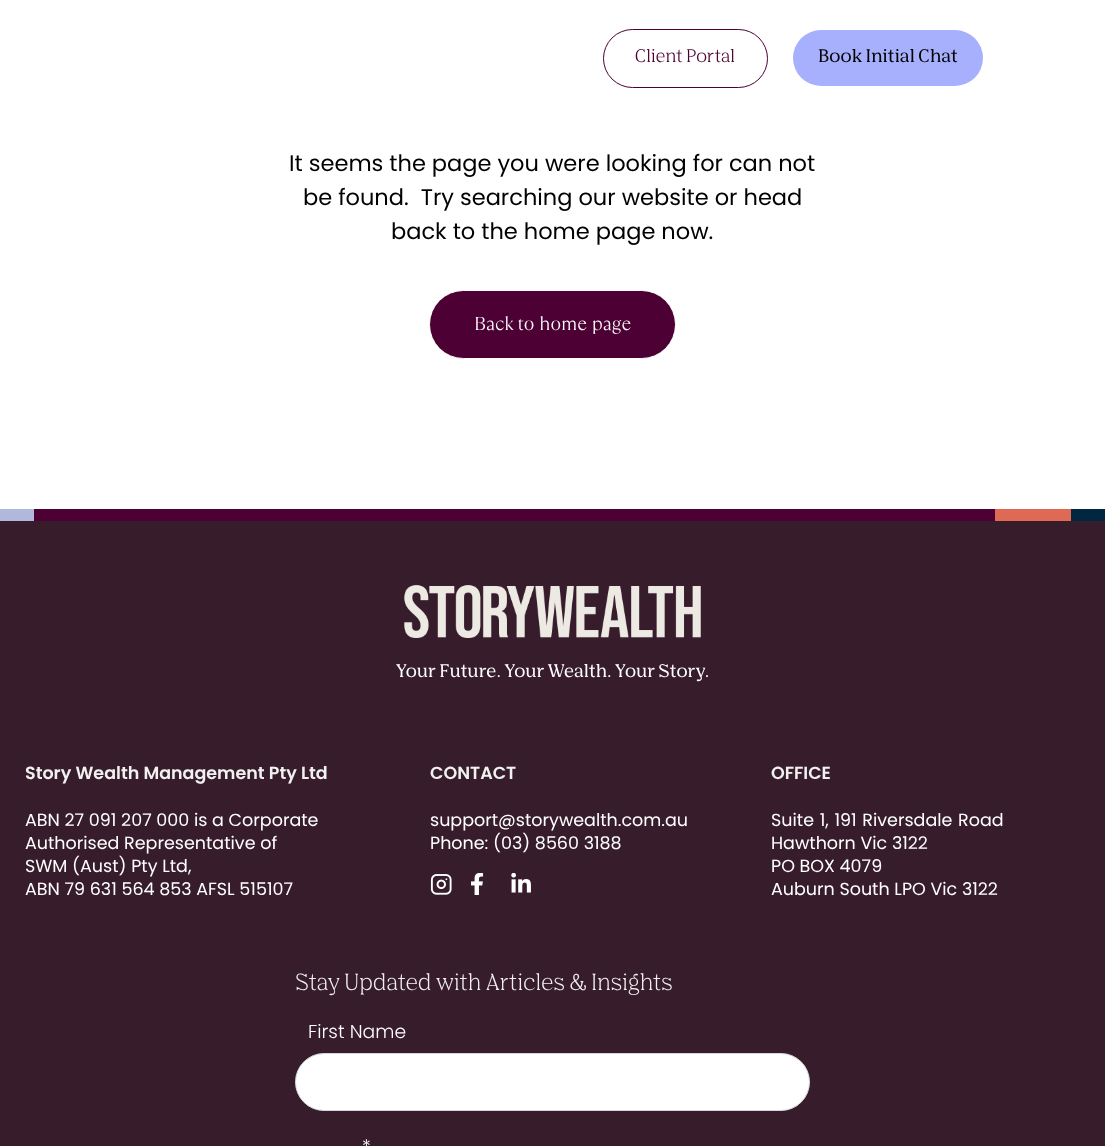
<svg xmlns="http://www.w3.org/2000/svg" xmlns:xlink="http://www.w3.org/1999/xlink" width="1105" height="1146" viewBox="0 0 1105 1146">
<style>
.cls-1{font:17.5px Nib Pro;fill:#4d0033}
.cls-2{font:600 17.5px Nib Pro;fill:#000000}
.cls-3{font:22.5px Poppins;fill:#000000}
.cls-4{font:300 18.75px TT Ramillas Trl;fill:#ffffff}
.cls-5{font:600 17.5px Nib Pro;fill:#ffffff}
.cls-6{font:600 17.5px Poppins;fill:#f1f1f1}
.cls-7{font:17.5px Poppins;fill:#ffffff}
.cls-8{font:300 22.5px Nib Pro;fill:#f1f1f1}
.cls-9{font:300 18.75px Poppins;fill:#ffffff}
</style>
<rect width="100%" height="100%" fill="#ffffff"/>
<rect fill="none" stroke="#4d0033" x="603.5" y="29.5" width="164" height="58" rx="29"/>
<rect fill="#a6b0fd" x="793" y="30" width="190" height="56" rx="28"/>
<rect fill="#4d0033" stroke="#ffffff" x="429.5" y="290.5" width="246" height="68" rx="34"/>
<rect fill="#b0b8de" x="0" y="509" width="34" height="12"/>
<rect fill="#4d0033" x="34" y="509" width="961" height="12"/>
<rect fill="#de6954" x="995" y="509" width="76" height="12"/>
<rect fill="#002640" x="1071" y="509" width="34" height="12"/>
<rect fill="#371c2b" x="0" y="521" width="1105" height="625"/>
<image xlink:href="image0.png" x="404" y="584" width="297" height="54"/>
<image xlink:href="image1.png" x="430" y="874" width="22" height="21"/>
<image xlink:href="image2.png" x="471" y="873" width="13" height="22"/>
<image xlink:href="image3.png" x="511" y="873" width="20" height="20"/>
<rect fill="#ffffff" stroke="#d2d7df" x="295.5" y="1053.5" width="514" height="57" rx="28.5"/>
<text class="cls-1" x="635" y="62">Client Portal</text>
<text class="cls-2" x="818" y="62">Book Initial Chat</text>
<text class="cls-3" x="289" y="171">It seems the page you were looking for can not</text>
<text class="cls-3" xml:space="preserve" x="303" y="205">be found.  Try searching our website or head</text>
<text class="cls-3" x="391" y="239">back to the home page now.</text>
<text class="cls-4" x="474" y="330">Back to home page</text>
<text class="cls-5" x="396" y="677">Your Future. Your Wealth. Your Story.</text>
<text class="cls-6" x="25" y="779">Story Wealth Management Pty Ltd</text>
<text class="cls-7"><tspan x="25" y="826">ABN 27 091 207 000 is a Corporate</tspan><tspan x="25" y="849">Authorised Representative of</tspan><tspan x="25" y="872">SWM (Aust) Pty Ltd,</tspan><tspan x="25" y="895">ABN 79 631 564 853 AFSL 515107</tspan></text>
<text class="cls-6" x="430" y="779">CONTACT</text>
<text class="cls-7"><tspan x="430" y="826">support@storywealth.com.au</tspan><tspan x="430" y="849">Phone: (03) 8560 3188</tspan></text>
<text class="cls-6" x="771" y="779">OFFICE</text>
<text class="cls-7"><tspan x="771" y="826" word-spacing="1">Suite 1, 191 Riversdale Road</tspan><tspan x="771" y="849">Hawthorn Vic 3122</tspan><tspan x="771" y="872">PO BOX 4079</tspan><tspan x="771" y="895">Auburn South LPO Vic 3122</tspan></text>
<text class="cls-8" x="295" y="990">Stay Updated with Articles &amp; Insights</text>
<text class="cls-9" x="308" y="1038">First Name</text>
<text class="cls-9" x="362" y="1153">*</text>
</svg>
